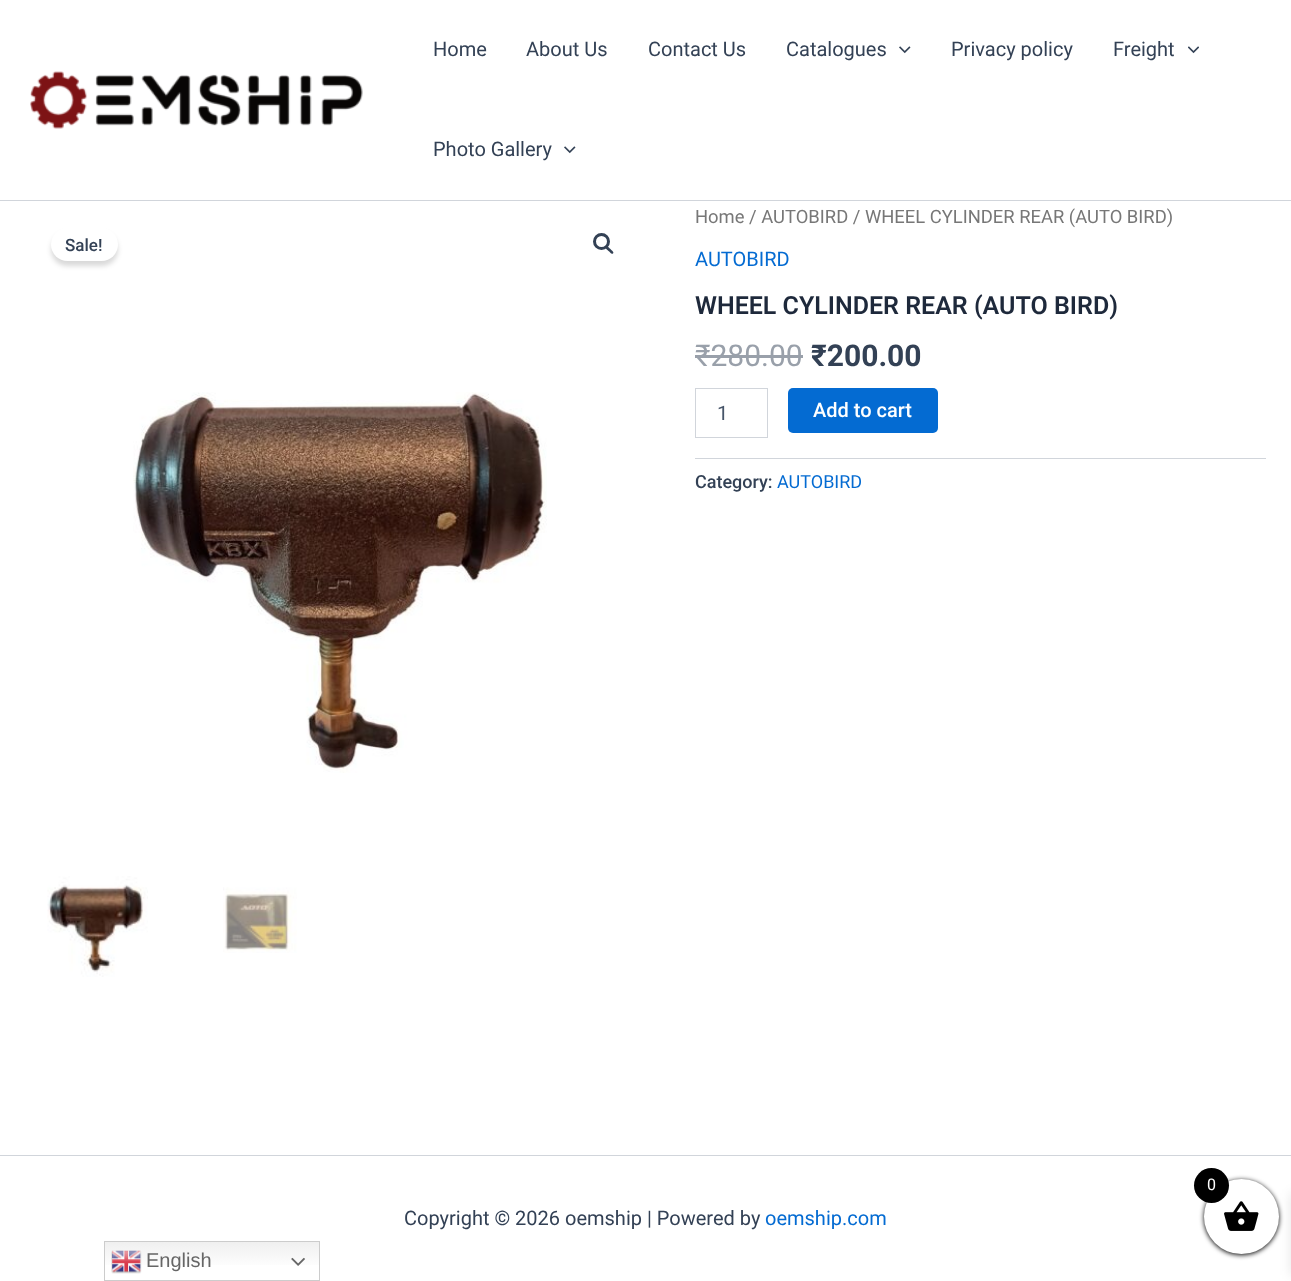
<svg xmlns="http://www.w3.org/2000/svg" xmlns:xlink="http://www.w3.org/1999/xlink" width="1291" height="1281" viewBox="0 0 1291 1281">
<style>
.cls-1{font:20px Roboto;fill:#334155}
.cls-2{font:18.4px Roboto;fill:#777777}
.cls-3{font:20px Roboto;fill:#046bd2}
.cls-4{font:600 25px Roboto;fill:#1e293b}
.cls-5{font:30px Roboto;fill:#99a0aa}
.cls-6{font:bold 30px Roboto;fill:#334155}
.cls-7{font:20px Roboto;fill:#475569}
.cls-8{font:500 20px Roboto;fill:#ffffff}
.cls-9{font:500 18px Roboto;fill:#334155}
.cls-10{font:18px Roboto;fill:#046bd2}
.cls-11{font:500 17px Roboto;fill:#334155}
.cls-12{font:16px Roboto;fill:#ffffff}
.cls-13{font:20px Liberation Sans;fill:#666666}
</style>
<defs>
<linearGradient id="g1" gradientUnits="userSpaceOnUse" x1="212" y1="1241" x2="212" y2="1281"><stop offset="0" stop-color="#efefef"/><stop offset="0.7" stop-color="#ffffff"/></linearGradient>
</defs>
<rect width="100%" height="100%" fill="#ffffff"/>
<rect fill="#d1d5db" x="0" y="200" width="1291" height="1"/>
<image xlink:href="image0.png" x="30" y="71" width="333" height="58"/>
<image xlink:href="image1.png" x="899" y="46" width="12" height="8"/>
<image xlink:href="image2.png" x="1188" y="46" width="11" height="8"/>
<image xlink:href="image1.png" x="564" y="146" width="12" height="8"/>
<circle fill="none" stroke="#334155" stroke-width="3" cx="601.5" cy="241.5" r="7"/>
<path fill="#334155" d="M606 246.5C607.5 245 609.5 248.5 610.5 249C611 250 614.5 252 613 253.5C611.5 255 609.5 251.5 608.5 251C607.5 250 604.5 248 606 246.5Z"/>
<image xlink:href="image3.png" x="133" y="392" width="414" height="381"/>
<image xlink:href="image4.png" x="47" y="876" width="101" height="101"/>
<image xlink:href="image5.png" x="223" y="887" width="74" height="66"/>
<rect fill="#99a0aa" x="695" y="355" width="108" height="3"/>
<rect fill="none" stroke="#d1d5db" x="695.5" y="388.5" width="72" height="49"/>
<rect fill="#046bd2" x="788" y="388" width="150" height="45" rx="5"/>
<rect fill="#d1d5db" x="695" y="458" width="571" height="1"/>
<rect fill="#000000" fill-opacity="0.15" filter="blur(2.5px)" x="51" y="233" width="67" height="33" rx="16.5"/>
<rect fill="#ffffff" x="51" y="228" width="67" height="33" rx="16.5"/>
<rect fill="#d1d5db" x="0" y="1155" width="1291" height="1"/>
<rect fill="#000000" filter="blur(2.5px)" x="1204" y="1180" width="75" height="75" rx="37.5"/>
<rect fill="#000000" fill-opacity="0.1" filter="blur(6px)" x="1291" y="1193" width="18" height="82"/>
<circle fill="#ffffff" cx="1241.5" cy="1216.5" r="37.5"/>
<image xlink:href="image6.png" x="1224" y="1201" width="35" height="30"/>
<circle fill="#000000" cx="1211.5" cy="1185.5" r="17.5"/>
<rect fill="url(#g1)" x="105" y="1242" width="214" height="23"/>
<rect fill="none" stroke="#cccccc" x="104.5" y="1241.5" width="215" height="39"/>
<image xlink:href="image7.png" x="111" y="1250" width="31" height="24"/>
<image xlink:href="image8.png" x="291" y="1257" width="14" height="9"/>
<text class="cls-1" x="433" y="56">Home</text>
<text class="cls-1" x="526" y="56">About Us</text>
<text class="cls-1" x="648" y="56">Contact Us</text>
<text class="cls-1" x="786" y="56">Catalogues</text>
<text class="cls-1" x="951" y="56">Privacy policy</text>
<text class="cls-1" x="1113" y="56">Freight</text>
<text class="cls-1" x="433" y="156">Photo Gallery</text>
<text class="cls-2" x="695" y="223">Home / AUTOBIRD / WHEEL CYLINDER REAR (AUTO BIRD)</text>
<text class="cls-3" x="695" y="266">AUTOBIRD</text>
<text class="cls-4" x="695" y="314">WHEEL CYLINDER REAR (AUTO BIRD)</text>
<text class="cls-5" x="695" y="366">₹280.00</text>
<text class="cls-6" x="811" y="366">₹200.00</text>
<text class="cls-7" x="717" y="420">1</text>
<text class="cls-8" x="813" y="417">Add to cart</text>
<text class="cls-9" x="695" y="488">Category:</text>
<text class="cls-10" x="777" y="488">AUTOBIRD</text>
<text class="cls-11" x="65" y="251">Sale!</text>
<text class="cls-1" x="404" y="1225">Copyright © 2026 oemship | Powered by</text>
<text class="cls-3" x="765" y="1225">oemship.com</text>
<text class="cls-12" x="1207" y="1190">0</text>
<text class="cls-13" x="146" y="1267">English</text>
</svg>
